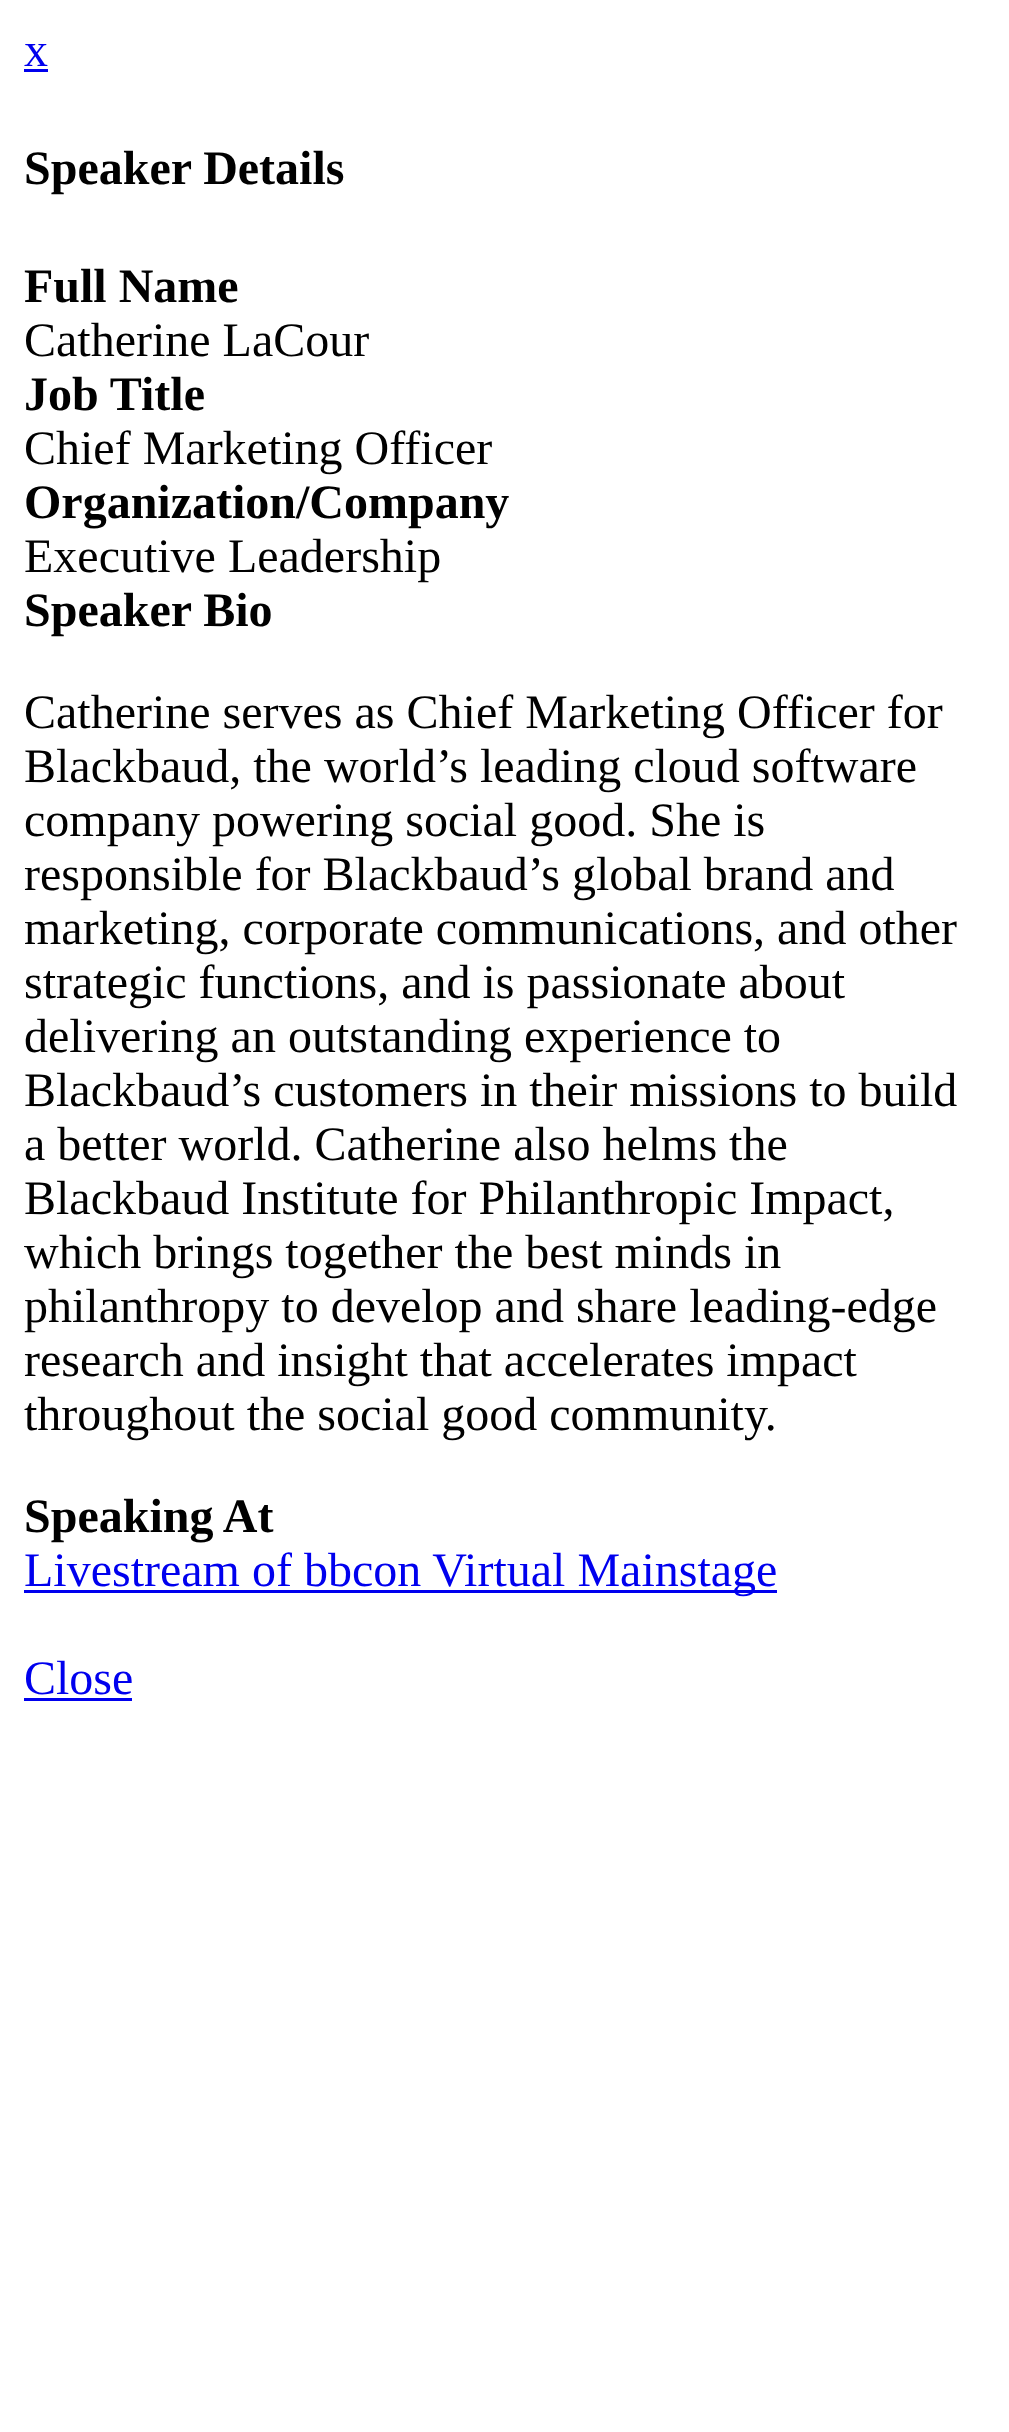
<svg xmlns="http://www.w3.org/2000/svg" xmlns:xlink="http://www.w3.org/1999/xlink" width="1009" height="2432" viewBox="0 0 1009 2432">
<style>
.cls-1{font:48px Liberation Serif;fill:#0000ee}
.cls-2{font:bold 48px Liberation Serif;fill:#000000}
.cls-3{font:48px Liberation Serif;fill:#000000}
</style>
<rect width="100%" height="100%" fill="#ffffff"/>
<rect fill="#0000ee" x="24" y="69" width="24" height="3"/>
<rect fill="#0000ee" x="24" y="1590" width="753" height="3"/>
<rect fill="#0000ee" x="24" y="1698" width="108" height="3"/>
<text class="cls-1" x="24" y="66">x</text>
<text class="cls-2" x="24" y="184">Speaker Details</text>
<text class="cls-2" x="24" y="302">Full Name</text>
<text class="cls-3" x="24" y="356">Catherine LaCour</text>
<text class="cls-2" x="24" y="410">Job Title</text>
<text class="cls-3" x="24" y="464">Chief Marketing Officer</text>
<text class="cls-2" x="24" y="518">Organization/Company</text>
<text class="cls-3" x="24" y="572">Executive Leadership</text>
<text class="cls-2" x="24" y="626">Speaker Bio</text>
<text class="cls-3"><tspan x="24" y="728">Catherine serves as Chief Marketing Officer for</tspan><tspan x="24" y="782">Blackbaud, the world’s leading cloud software</tspan><tspan x="24" y="836">company powering social good. She is</tspan><tspan x="24" y="890">responsible for Blackbaud’s global brand and</tspan><tspan x="24" y="944">marketing, corporate communications, and other</tspan><tspan x="24" y="998">strategic functions, and is passionate about</tspan><tspan x="24" y="1052">delivering an outstanding experience to</tspan><tspan x="24" y="1106">Blackbaud’s customers in their missions to build</tspan><tspan x="24" y="1160">a better world. Catherine also helms the</tspan><tspan x="24" y="1214">Blackbaud Institute for Philanthropic Impact,</tspan><tspan x="24" y="1268">which brings together the best minds in</tspan><tspan x="24" y="1322">philanthropy to develop and share leading-edge</tspan><tspan x="24" y="1376">research and insight that accelerates impact</tspan><tspan x="24" y="1430">throughout the social good community.</tspan></text>
<text class="cls-2" x="24" y="1532">Speaking At</text>
<text class="cls-1" x="24" y="1586">Livestream of bbcon Virtual Mainstage</text>
<text class="cls-1" x="24" y="1694">Close</text>
</svg>
